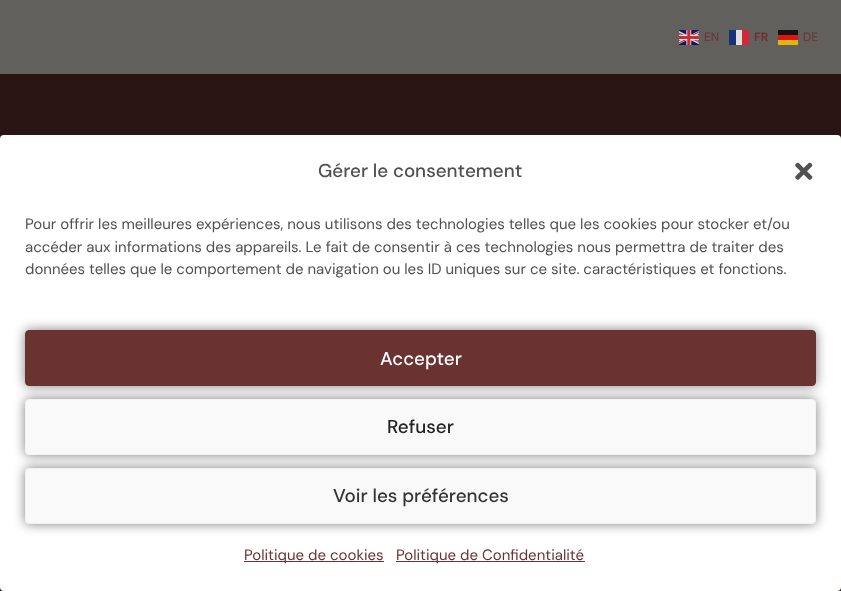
<svg xmlns="http://www.w3.org/2000/svg" xmlns:xlink="http://www.w3.org/1999/xlink" width="841" height="591" viewBox="0 0 841 591">
<style>
.cls-1{font:12px DM Sans;fill:#6b3232}
.cls-2{font:bold 12px DM Sans;fill:#6b3232}
.cls-3{font:500 18.75px DM Sans;fill:#505050}
.cls-4{font:15px DM Sans;fill:#505050}
.cls-5{font:500 18.75px DM Sans;fill:#ffffff}
.cls-6{font:500 18.75px DM Sans;fill:#222222}
.cls-7{font:500 18.75px DM Sans;fill:#333333}
.cls-8{font:15px DM Sans;fill:#6b3232}
</style>
<rect width="100%" height="100%" fill="#62605d"/>
<image xlink:href="image0.png" x="679" y="30" width="20" height="15"/>
<rect fill="#e0dfdf" x="736" y="30" width="6" height="15"/>
<rect fill="#143278" x="729" y="30" width="7" height="15"/>
<rect fill="#d62639" x="742" y="30" width="7" height="15"/>
<rect fill="#e0b613" x="778" y="40" width="20" height="5"/>
<rect fill="#141313" x="778" y="30" width="20" height="5"/>
<rect fill="#e01313" x="778" y="35" width="20" height="5"/>
<rect fill="#2b1414" x="0" y="74" width="841" height="517"/>
<rect fill="#ffffff" x="0" y="135" width="841" height="456" rx="4"/>
<image xlink:href="image1.png" x="795" y="162" width="18" height="18"/>
<rect fill="#000000" fill-opacity="0.5" filter="blur(6px)" x="25" y="330" width="791" height="56" rx="4"/>
<rect fill="#6b3232" stroke="#6b3232" x="25.5" y="330.5" width="790" height="55" rx="3.5"/>
<rect fill="#000000" fill-opacity="0.5" filter="blur(6px)" x="25" y="399" width="791" height="56" rx="4"/>
<rect fill="#f9f9f9" stroke="#f2f2f2" x="25.5" y="399.5" width="790" height="55" rx="3.5"/>
<rect fill="#000000" fill-opacity="0.5" filter="blur(6px)" x="25" y="468" width="791" height="56" rx="4"/>
<rect fill="#f9f9f9" stroke="#f2f2f2" x="25.5" y="468.5" width="790" height="55" rx="3.5"/>
<rect fill="#6b3232" x="244" y="561" width="140" height="1"/>
<rect fill="#6b3232" x="396" y="561" width="189" height="1"/>
<text class="cls-1" x="704" y="41">EN</text>
<text class="cls-2" x="754" y="41">FR</text>
<text class="cls-1" x="803" y="41">DE</text>
<text class="cls-3" x="318" y="177">Gérer le consentement</text>
<text class="cls-4"><tspan x="25" y="229">Pour offrir les meilleures expériences, nous utilisons des technologies telles que les cookies pour stocker et/ou</tspan><tspan x="25" y="252">accéder aux informations des appareils. Le fait de consentir à ces technologies nous permettra de traiter des</tspan><tspan x="25" y="274">données telles que le comportement de navigation ou les ID uniques sur ce site. caractéristiques et fonctions.</tspan></text>
<text class="cls-5" x="380" y="365">Accepter</text>
<text class="cls-6" x="387" y="433">Refuser</text>
<text class="cls-7" x="333" y="502">Voir les préférences</text>
<text class="cls-8" x="244" y="560">Politique de cookies</text>
<text class="cls-8" x="396" y="560">Politique de Confidentialité</text>
</svg>
